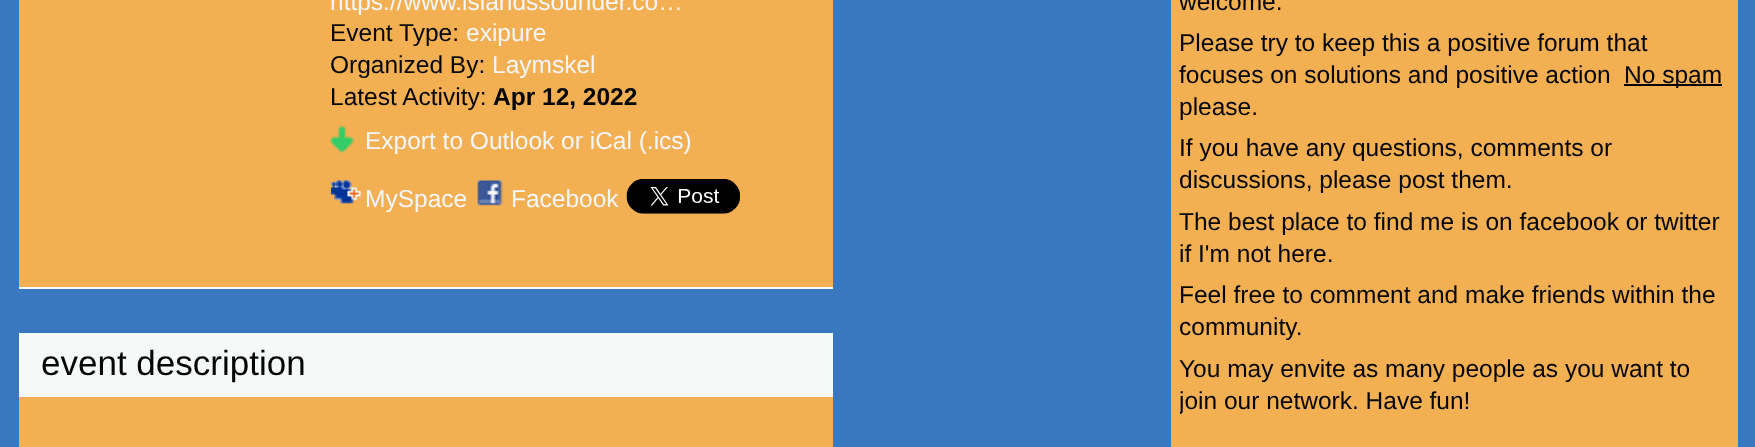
<svg xmlns="http://www.w3.org/2000/svg" xmlns:xlink="http://www.w3.org/1999/xlink" width="1755" height="447" viewBox="0 0 1755 447">
<style>
.cls-1{font:24.5px Liberation Sans;fill:#f5f6fa}
.cls-2{font:24.5px Liberation Sans;fill:#050505}
.cls-3{font:bold 24.5px Liberation Sans;fill:#050505}
.cls-4{font:35px Liberation Sans;fill:#050505}
</style>
<defs>
<clipPath id="clip1"><rect x="1180" y="131" width="549" height="65"/></clipPath>
<clipPath id="clip2"><rect x="1180" y="278" width="549" height="65"/></clipPath>
<clipPath id="clip3"><rect x="1180" y="352" width="549" height="65"/></clipPath>
</defs>
<rect width="100%" height="100%" fill="#3977bf"/>
<rect fill="#f5faf9" x="19" y="287" width="814" height="2"/>
<rect fill="#f2b053" x="19" y="0" width="814" height="287"/>
<image xlink:href="image0.png" x="330" y="126" width="24" height="27"/>
<image xlink:href="image1.png" x="330" y="180" width="31" height="24"/>
<image xlink:href="image2.png" x="477" y="180" width="26" height="26"/>
<image xlink:href="image3.png" x="626" y="179" width="114" height="35"/>
<rect fill="#f5faf9" x="19" y="333" width="814" height="64"/>
<rect fill="#f2b053" x="19" y="397" width="814" height="50"/>
<rect fill="#f2b053" x="1171" y="0" width="567" height="447"/>
<rect fill="#030303" x="1624" y="84" width="98" height="2"/>
<text class="cls-1" x="330" y="10">https://www.islandssounder.co…</text>
<text class="cls-2" x="330" y="41">Event Type:</text>
<text class="cls-1" x="466" y="41">exipure</text>
<text class="cls-2" x="330" y="73">Organized By:</text>
<text class="cls-1" x="492" y="73">Laymskel</text>
<text class="cls-2" x="330" y="105">Latest Activity:</text>
<text class="cls-3" x="493" y="105">Apr 12, 2022</text>
<text class="cls-1" x="365" y="149">Export to Outlook or iCal (.ics)</text>
<text class="cls-1" x="365" y="207">MySpace</text>
<text class="cls-1" x="511" y="207">Facebook</text>
<text class="cls-4" x="41" y="375">event description</text>
<text class="cls-2"><tspan x="1179" y="10">welcome.</tspan><tspan x="1179" y="51">Please try to keep this a positive forum that</tspan><tspan x="1179" y="83">focuses on solutions and positive action</tspan></text>
<text class="cls-2" x="1624" y="83">No spam</text>
<text class="cls-2"><tspan x="1179" y="115">please.</tspan><tspan x="1179" y="156">If you have any questions, comments or</tspan></text>
<g clip-path="url(#clip1)">
<text class="cls-2" x="1179" y="188">discussions, please post them.</text>
</g>
<text class="cls-2"><tspan x="1179" y="230">The best place to find me is on facebook or twitter</tspan><tspan x="1179" y="262">if I'm not here.</tspan><tspan x="1179" y="303">Feel free to comment and make friends within the</tspan></text>
<g clip-path="url(#clip2)">
<text class="cls-2" x="1179" y="335">community.</text>
</g>
<text class="cls-2" x="1179" y="377">You may envite as many people as you want to</text>
<g clip-path="url(#clip3)">
<text class="cls-2" x="1179" y="409">join our network. Have fun!</text>
</g>
</svg>
